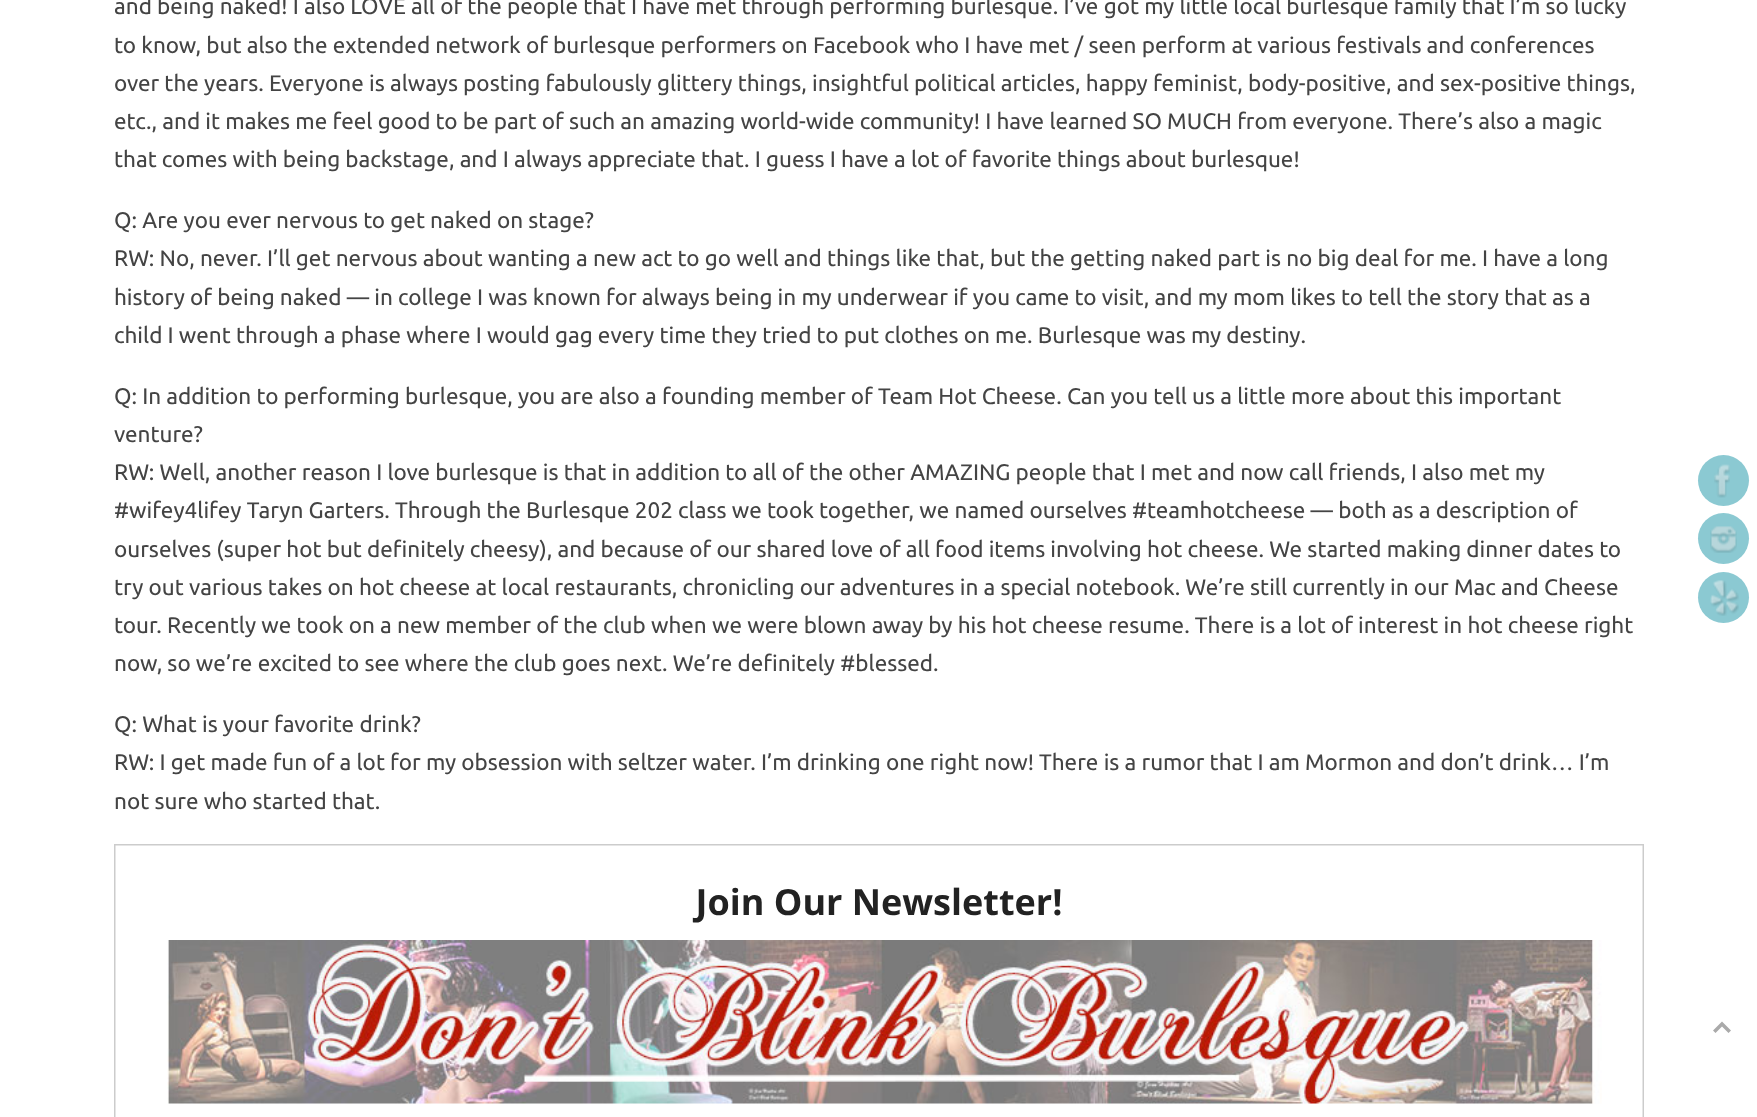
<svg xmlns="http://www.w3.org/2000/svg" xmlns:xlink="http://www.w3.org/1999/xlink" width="1757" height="1117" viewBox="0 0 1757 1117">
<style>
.cls-1{font:22.5px Ubuntu;fill:#444444}
</style>
<rect width="100%" height="100%" fill="#ffffff"/>
<image xlink:href="image0.png" x="114" y="844" width="1530" height="273"/>
<path fill="#aaaaaa" d="M1713 1030.5L1722 1021.5L1731 1030.5L1728.5 1033L1722 1026.5L1715.5 1033Z"/>
<circle fill="#8bc9d2" cx="1723.5" cy="480.5" r="25.5"/>
<image xlink:href="image1.png" x="1714" y="464" width="16" height="34"/>
<circle fill="#8bc9d2" cx="1723.5" cy="538.5" r="25.5"/>
<image xlink:href="image2.png" x="1710" y="526" width="27" height="27"/>
<circle fill="#8bc9d2" cx="1723.5" cy="597.5" r="25.5"/>
<image xlink:href="image3.png" x="1710" y="580" width="29" height="36"/>
<text class="cls-1"><tspan x="114" y="14">and being naked! I also LOVE all of the people that I have met through performing burlesque. I’ve got my little local burlesque family that I’m so lucky</tspan><tspan x="114" y="53">to know, but also the extended network of burlesque performers on Facebook who I have met / seen perform at various festivals and conferences</tspan><tspan x="114" y="91">over the years. Everyone is always posting fabulously glittery things, insightful political articles, happy feminist, body-positive, and sex-positive things,</tspan><tspan x="114" y="129">etc., and it makes me feel good to be part of such an amazing world-wide community! I have learned SO MUCH from everyone. There’s also a magic</tspan><tspan x="114" y="167">that comes with being backstage, and I always appreciate that. I guess I have a lot of favorite things about burlesque!</tspan></text>
<text class="cls-1"><tspan x="114" y="228">Q: Are you ever nervous to get naked on stage?</tspan><tspan x="114" y="266">RW: No, never. I’ll get nervous about wanting a new act to go well and things like that, but the getting naked part is no big deal for me. I have a long</tspan><tspan x="114" y="305">history of being naked — in college I was known for always being in my underwear if you came to visit, and my mom likes to tell the story that as a</tspan><tspan x="114" y="343">child I went through a phase where I would gag every time they tried to put clothes on me. Burlesque was my destiny.</tspan></text>
<text class="cls-1"><tspan x="114" y="404">Q: In addition to performing burlesque, you are also a founding member of Team Hot Cheese. Can you tell us a little more about this important</tspan><tspan x="114" y="442">venture?</tspan><tspan x="114" y="480">RW: Well, another reason I love burlesque is that in addition to all of the other AMAZING people that I met and now call friends, I also met my</tspan><tspan x="114" y="518">#wifey4lifey Taryn Garters. Through the Burlesque 202 class we took together, we named ourselves #teamhotcheese — both as a description of</tspan><tspan x="114" y="557">ourselves (super hot but definitely cheesy), and because of our shared love of all food items involving hot cheese. We started making dinner dates to</tspan><tspan x="114" y="595">try out various takes on hot cheese at local restaurants, chronicling our adventures in a special notebook. We’re still currently in our Mac and Cheese</tspan><tspan x="114" y="633">tour. Recently we took on a new member of the club when we were blown away by his hot cheese resume. There is a lot of interest in hot cheese right</tspan><tspan x="114" y="671">now, so we’re excited to see where the club goes next. We’re definitely #blessed.</tspan></text>
<text class="cls-1"><tspan x="114" y="732">Q: What is your favorite drink?</tspan><tspan x="114" y="770">RW: I get made fun of a lot for my obsession with seltzer water. I’m drinking one right now! There is a rumor that I am Mormon and don’t drink… I’m</tspan><tspan x="114" y="809">not sure who started that.</tspan></text>
</svg>
